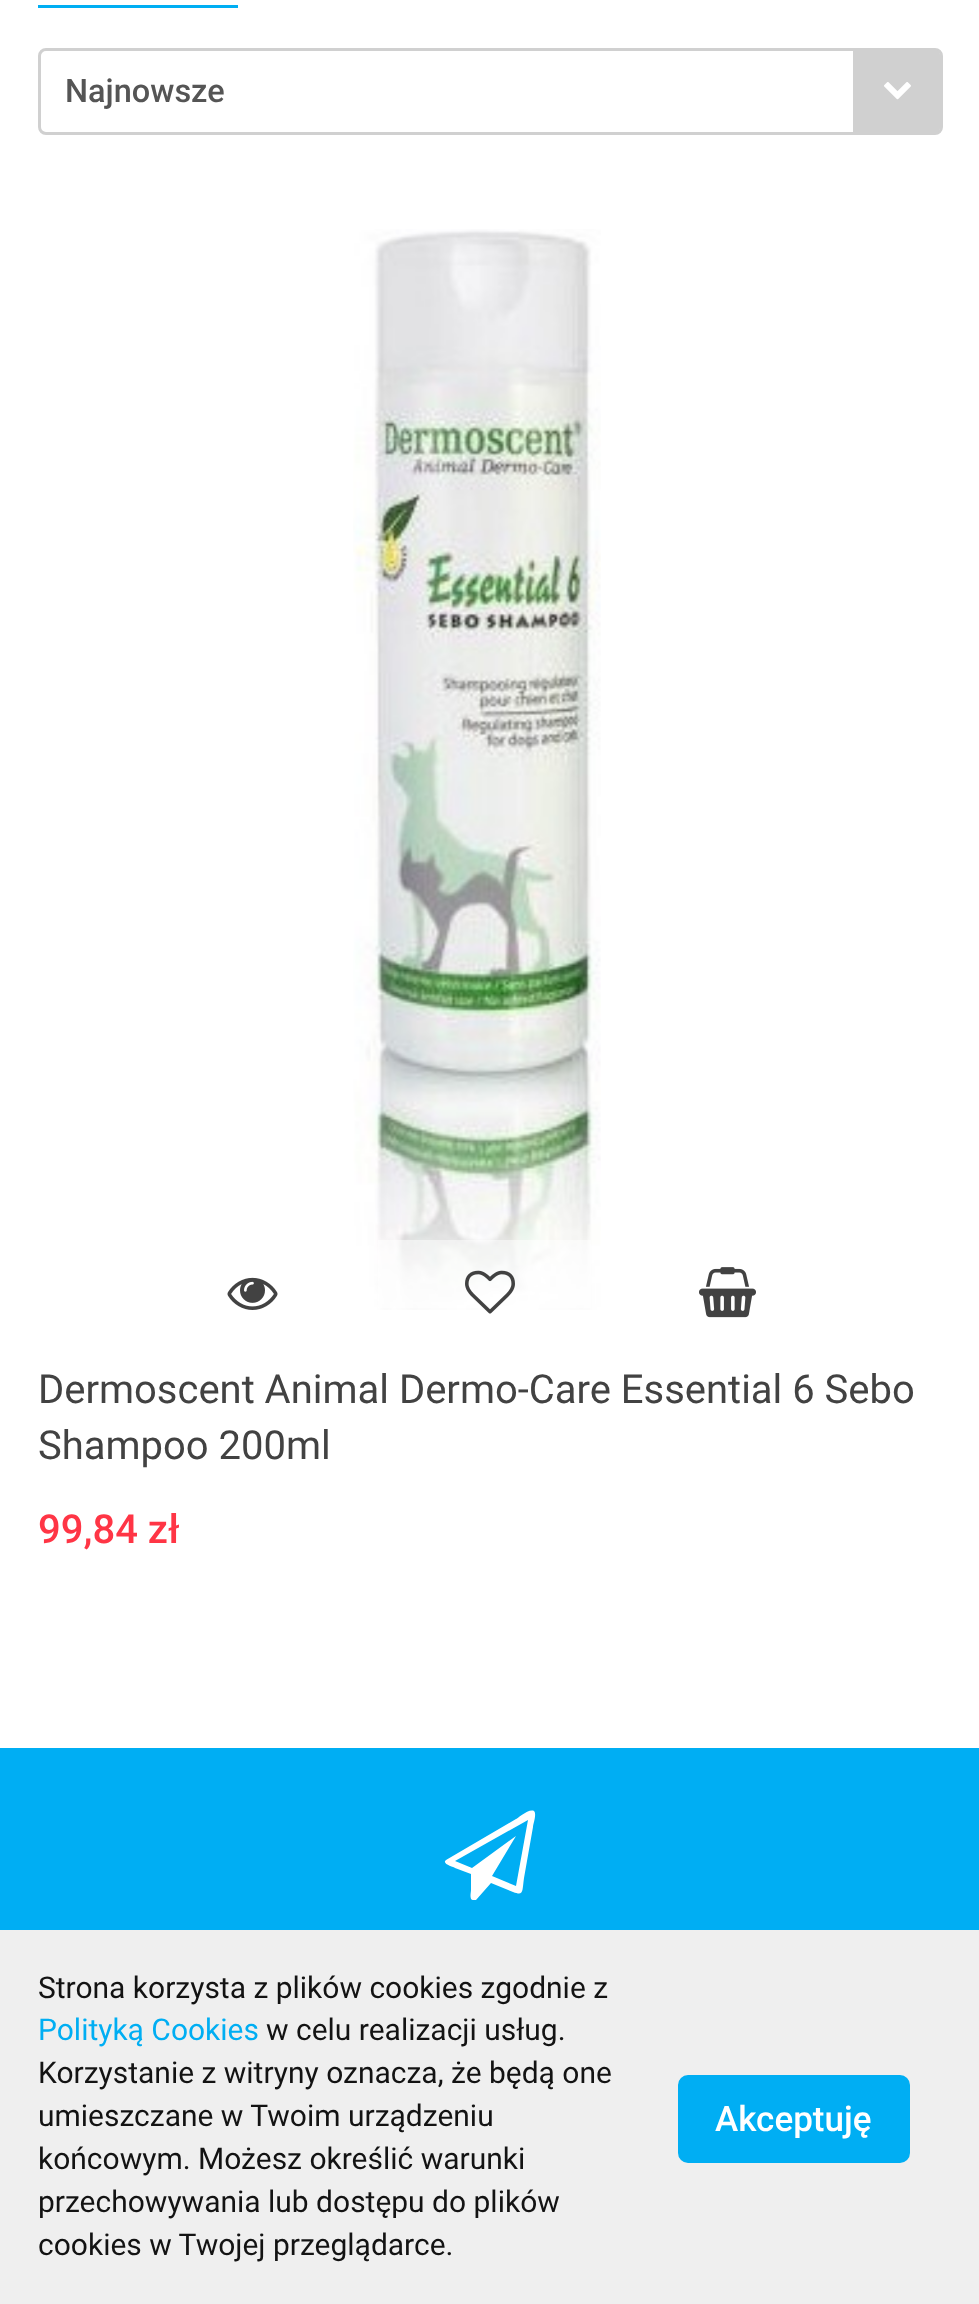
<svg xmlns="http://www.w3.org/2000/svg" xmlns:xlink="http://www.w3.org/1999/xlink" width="979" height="2304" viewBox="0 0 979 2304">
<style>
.cls-1{font:500 32.5px Roboto;fill:#555555}
.cls-2{font:40px Roboto;fill:#424242}
.cls-3{font:500 40px Roboto;fill:#ff3545}
.cls-4{font:30px Roboto;fill:#131313}
.cls-5{font:30px Roboto;fill:#00aef3}
.cls-6{font:500 35px Roboto;fill:#ffffff}
</style>
<rect width="100%" height="100%" fill="#ffffff"/>
<rect fill="#00aef3" x="38" y="5" width="200" height="3"/>
<rect fill="none" stroke="#d0d0d0" stroke-width="3" x="39.5" y="49.5" width="902" height="84" rx="6.5"/>
<path fill="#d0d0d0" d="M853 50H935C938 50 940 52 940 55V128C940 131 938 133 935 133H853Z"/>
<image xlink:href="image0.png" x="884" y="82" width="27" height="18"/>
<image xlink:href="image1.png" x="353" y="229" width="248" height="1081"/>
<rect fill="#ffffff" fill-opacity="0.5" x="378" y="1240" width="213" height="68"/>
<image xlink:href="image2.png" x="227" y="1277" width="51" height="33"/>
<image xlink:href="image3.png" x="465" y="1270" width="50" height="44"/>
<image xlink:href="image4.png" x="699" y="1267" width="57" height="51"/>
<rect fill="#00aef3" x="0" y="1748" width="979" height="182"/>
<path fill="#ffffff" d="M534 1811C537 1814 533 1824 533 1827L524 1878C522 1892 524 1896 513 1892L491 1883L476 1900H473C469 1900 471 1892 471 1890V1874L455 1868C454 1867 441 1864 446 1860L516 1819C517 1819 529 1808 534 1811ZM516 1886L528 1820L455 1861L472 1868L516 1836L492 1876Z"/>
<rect fill="#efefef" x="0" y="1930" width="979" height="374"/>
<rect fill="#00aef3" stroke="#00aef3" stroke-width="8" x="682" y="2079" width="224" height="80" rx="6"/>
<text class="cls-1" x="65" y="102">Najnowsze</text>
<text class="cls-2"><tspan x="38" y="1403">Dermoscent Animal Dermo-Care Essential 6 Sebo</tspan><tspan x="38" y="1459">Shampoo 200ml</tspan></text>
<text class="cls-3" x="38" y="1543">99,84 zł</text>
<text class="cls-4" x="38" y="1998">Strona korzysta z plików cookies zgodnie z</text>
<text class="cls-5" x="38" y="2040">Polityką Cookies</text>
<text class="cls-4" x="266" y="2040">w celu realizacji usług.</text>
<text class="cls-4"><tspan x="38" y="2083">Korzystanie z witryny oznacza, że będą one</tspan><tspan x="38" y="2126">umieszczane w Twoim urządzeniu</tspan><tspan x="38" y="2169">końcowym. Możesz określić warunki</tspan><tspan x="38" y="2212">przechowywania lub dostępu do plików</tspan><tspan x="38" y="2255">cookies w Twojej przeglądarce.</tspan></text>
<text class="cls-6" x="715" y="2131">Akceptuję</text>
</svg>
